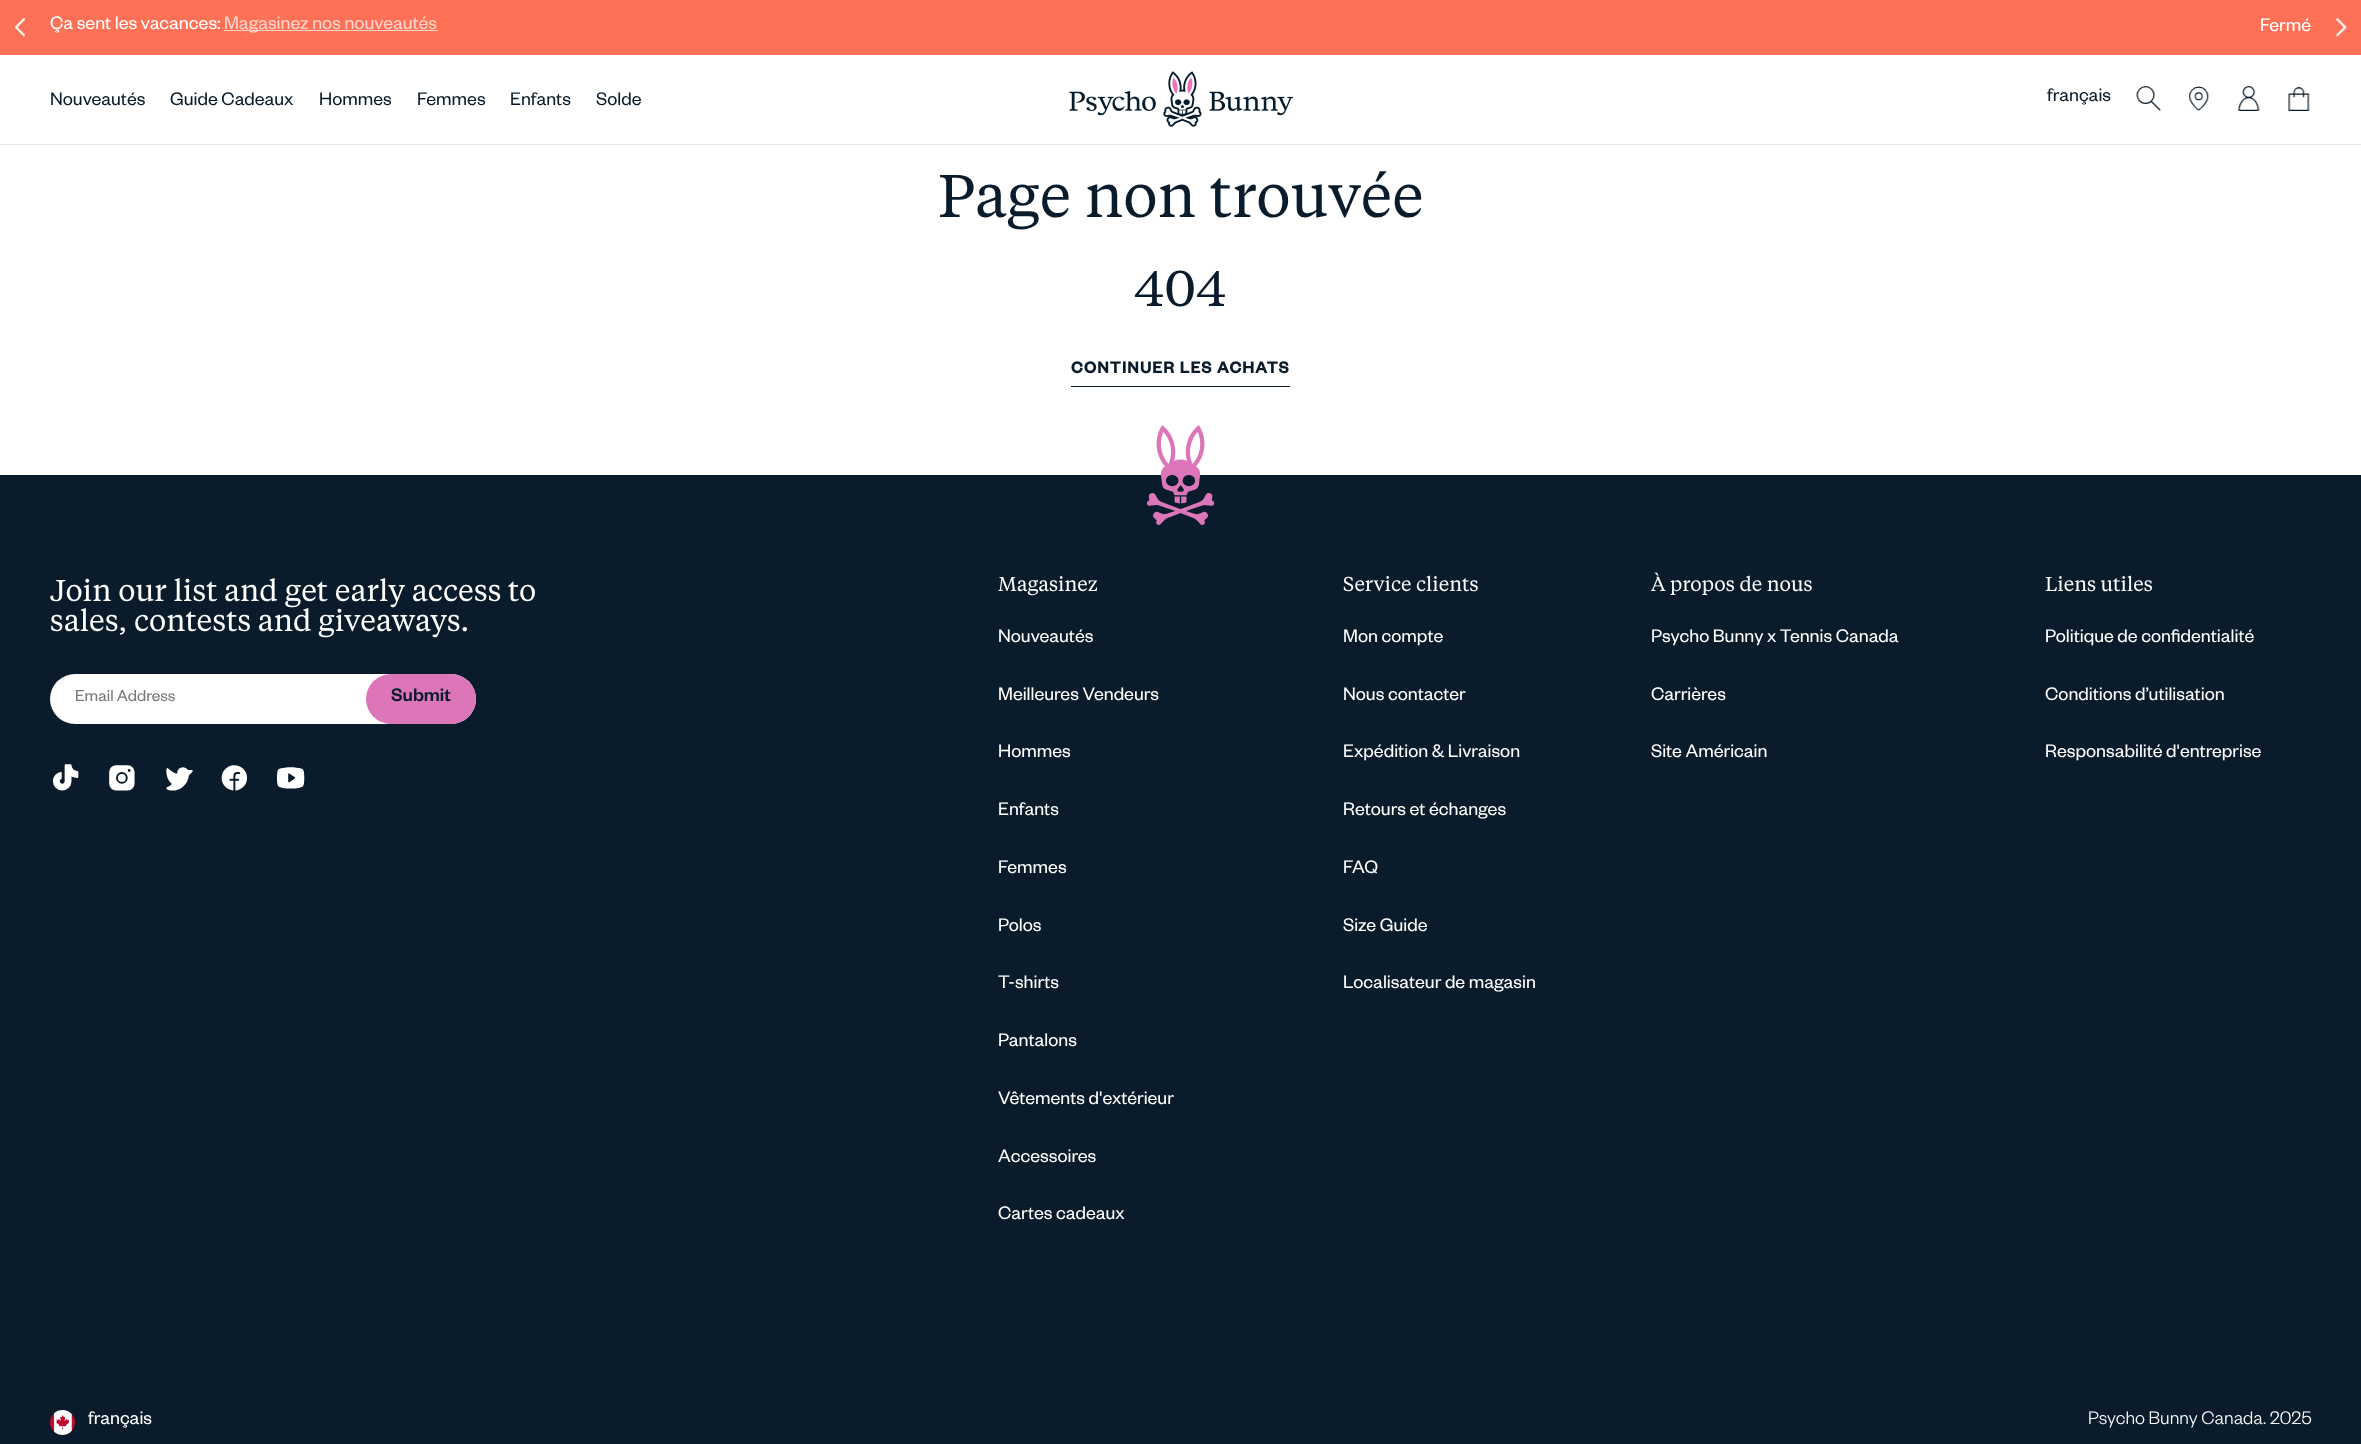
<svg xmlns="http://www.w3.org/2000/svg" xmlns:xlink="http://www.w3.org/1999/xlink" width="2361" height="1444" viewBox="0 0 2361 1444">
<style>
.cls-1{font:20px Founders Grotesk;fill:#ffffff}
.cls-2{font:20px Founders Grotesk;fill:#ffd4cc}
.cls-3{font:20px Founders Grotesk;fill:#0a1c2b}
.cls-4{font:60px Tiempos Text;fill:#0a1c2b}
.cls-5{font:50px Tiempos Text;fill:#0a1c2b}
.cls-6{font:bold 17.5px Founders Grotesk;letter-spacing:1.25px;fill:#0a1c2b}
.cls-7{font:30px Tiempos Text;fill:#ffffff}
.cls-8{font:17.5px Founders Grotesk;fill:#777777}
.cls-9{font:500 20px Founders Grotesk;fill:#0a1c2b}
.cls-10{font:20px Tiempos Text;fill:#ffffff}
.cls-11{font:300 20px Founders Grotesk;fill:#ffffff}
</style>
<rect width="100%" height="100%" fill="#ffffff"/>
<rect fill="#fe7156" x="0" y="0" width="2361" height="55"/>
<image xlink:href="image0.png" x="15" y="18" width="10" height="19"/>
<rect fill="#ffd4cc" x="224" y="30" width="214" height="1"/>
<image xlink:href="image1.png" x="2336" y="18" width="11" height="19"/>
<rect fill="#e7e7e7" x="0" y="144" width="2361" height="1"/>
<image xlink:href="image2.png" x="1069" y="71" width="225" height="56"/>
<image xlink:href="image3.png" x="2136" y="86" width="26" height="25"/>
<image xlink:href="image4.png" x="2188" y="86" width="22" height="25"/>
<image xlink:href="image5.png" x="2238" y="86" width="22" height="25"/>
<image xlink:href="image6.png" x="2288" y="87" width="22" height="24"/>
<rect fill="#0a1c2b" x="1071" y="386" width="219" height="1"/>
<rect fill="#0a1c2b" x="0" y="475" width="2361" height="969"/>
<image xlink:href="image7.png" x="1146" y="425" width="69" height="100"/>
<rect fill="#ffffff" x="50" y="674" width="426" height="50" rx="25"/>
<rect fill="#dc76b8" x="366" y="674" width="110" height="50" rx="25"/>
<image xlink:href="image8.png" x="53" y="764" width="26" height="27"/>
<image xlink:href="image9.png" x="109" y="765" width="26" height="26"/>
<image xlink:href="image10.png" x="166" y="767" width="27" height="24"/>
<image xlink:href="image11.png" x="221" y="765" width="26" height="26"/>
<image xlink:href="image12.png" x="276" y="767" width="29" height="22"/>
<image xlink:href="image13.png" x="50" y="1410" width="25" height="25"/>
<text class="cls-1" x="50" y="29">Ça sent les vacances:</text>
<text class="cls-2" x="224" y="29">Magasinez nos nouveautés</text>
<text class="cls-1" x="2260" y="31">Fermé</text>
<text class="cls-3" x="50" y="105">Nouveautés</text>
<text class="cls-3" x="170" y="105">Guide Cadeaux</text>
<text class="cls-3" x="319" y="105">Hommes</text>
<text class="cls-3" x="417" y="105">Femmes</text>
<text class="cls-3" x="510" y="105">Enfants</text>
<text class="cls-3" x="596" y="105">Solde</text>
<text class="cls-3" x="2047" y="101">français</text>
<text class="cls-4" x="938" y="217">Page non trouvée</text>
<text class="cls-5" x="1134" y="306">404</text>
<text class="cls-6" x="1071" y="373">CONTINUER LES ACHATS</text>
<text class="cls-7"><tspan x="50" y="601">Join our list and get early access to</tspan><tspan x="50" y="631">sales, contests and giveaways.</tspan></text>
<text class="cls-8" x="75" y="701">Email Address</text>
<text class="cls-9" x="391" y="701">Submit</text>
<text class="cls-10" x="998" y="591">Magasinez</text>
<text class="cls-1" x="998" y="642">Nouveautés</text>
<text class="cls-1" x="998" y="700">Meilleures Vendeurs</text>
<text class="cls-1" x="998" y="757">Hommes</text>
<text class="cls-1" x="998" y="815">Enfants</text>
<text class="cls-1" x="998" y="873">Femmes</text>
<text class="cls-1" x="998" y="931">Polos</text>
<text class="cls-1" x="998" y="988">T-shirts</text>
<text class="cls-1" x="998" y="1046">Pantalons</text>
<text class="cls-1" x="998" y="1104">Vêtements d'extérieur</text>
<text class="cls-1" x="998" y="1162">Accessoires</text>
<text class="cls-1" x="998" y="1219">Cartes cadeaux</text>
<text class="cls-10" x="1343" y="591">Service clients</text>
<text class="cls-1" x="1343" y="642">Mon compte</text>
<text class="cls-1" x="1343" y="700">Nous contacter</text>
<text class="cls-1" x="1343" y="757">Expédition &amp; Livraison</text>
<text class="cls-1" x="1343" y="815">Retours et échanges</text>
<text class="cls-1" x="1343" y="873">FAQ</text>
<text class="cls-1" x="1343" y="931">Size Guide</text>
<text class="cls-1" x="1343" y="988">Localisateur de magasin</text>
<text class="cls-10" x="1651" y="591">À propos de nous</text>
<text class="cls-1" x="1651" y="642">Psycho Bunny x Tennis Canada</text>
<text class="cls-1" x="1651" y="700">Carrières</text>
<text class="cls-1" x="1651" y="757">Site Américain</text>
<text class="cls-10" x="2045" y="591">Liens utiles</text>
<text class="cls-1" x="2045" y="642">Politique de confidentialité</text>
<text class="cls-1" x="2045" y="700">Conditions d’utilisation</text>
<text class="cls-1" x="2045" y="757">Responsabilité d'entreprise</text>
<text class="cls-1" x="88" y="1424">français</text>
<text class="cls-11" x="2088" y="1424">Psycho Bunny Canada. 2025</text>
</svg>
